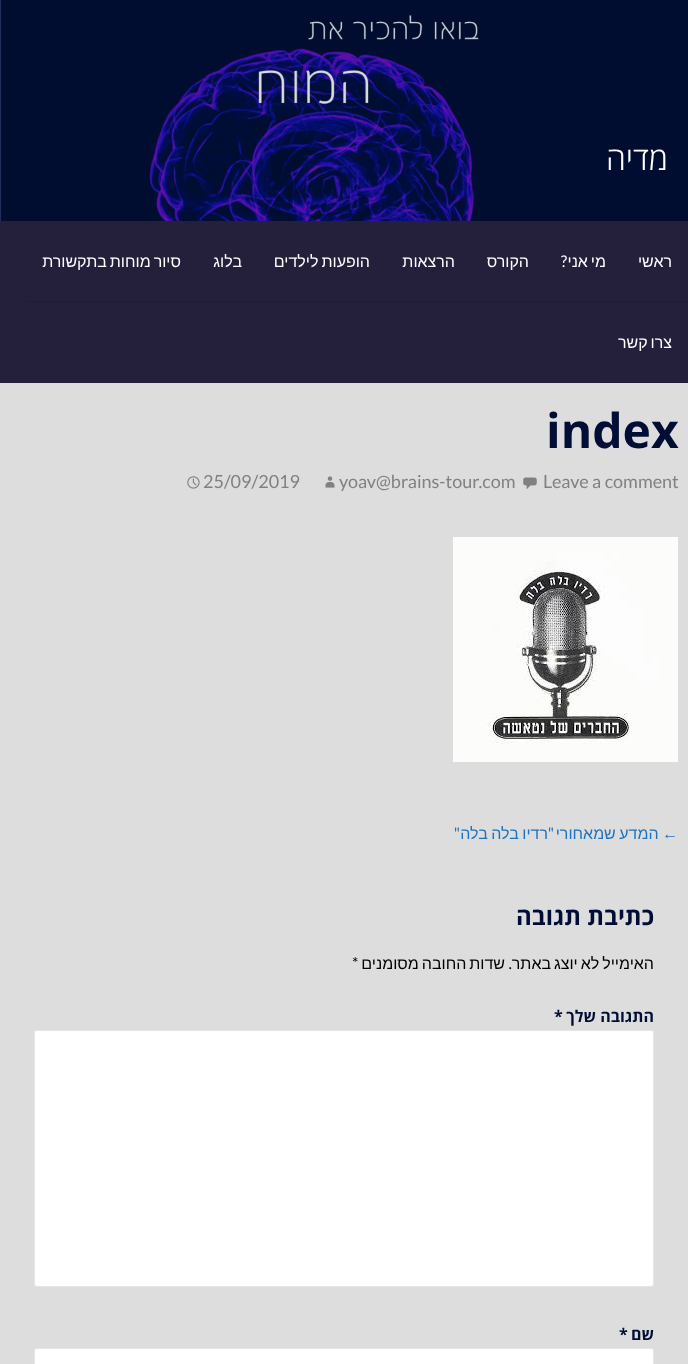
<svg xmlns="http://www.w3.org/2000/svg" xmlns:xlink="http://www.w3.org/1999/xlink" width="688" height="1364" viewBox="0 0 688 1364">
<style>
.cls-1{font:300 32px Open Sans;direction:rtl;fill:#ffffff}
.cls-2{font:16px Liberation Sans;direction:rtl;fill:#ffffff}
.cls-3{font:16px Lato;direction:rtl;fill:#ffffff}
.cls-4{font:bold 48px Open Sans;fill:#000e35}
.cls-5{font:18px Lato;fill:#818181}
.cls-6{font:16px Liberation Sans;direction:rtl;fill:#1e73be}
.cls-7{font:16px Lato;direction:rtl;fill:#1e73be}
.cls-8{font:bold 24px Open Sans;direction:rtl;fill:#000e35}
.cls-9{font:16px Liberation Sans;direction:rtl;fill:#000000}
.cls-10{font:16px Lato;direction:rtl;fill:#000000}
.cls-11{font:16px Lato;fill:#000000}
.cls-12{font:bold 16px Open Sans;direction:rtl;fill:#000e35}
.cls-13{font:bold 16px Open Sans;fill:#000e35}
</style>
<rect width="100%" height="100%" fill="#dddddd"/>
<image xlink:href="image0.png" x="0" y="0" width="688" height="221"/>
<rect fill="#241f3a" x="0" y="221" width="688" height="162"/>
<rect fill="#201c34" x="26" y="301" width="662" height="1"/>
<rect fill="#201c34" x="602" y="382" width="86" height="1"/>
<image xlink:href="image1.png" x="523" y="477" width="14" height="13"/>
<image xlink:href="image2.png" x="325" y="476" width="10" height="12"/>
<image xlink:href="image3.png" x="187" y="476" width="13" height="13"/>
<image xlink:href="image4.png" x="453" y="537" width="225" height="225"/>
<rect fill="#ffffff" x="34" y="1030" width="620" height="257" rx="3"/>
<rect fill="none" stroke="#000000" stroke-opacity="0.1" x="34.5" y="1030.5" width="619" height="256" rx="2.5"/>
<rect fill="#ffffff" x="34" y="1348" width="620" height="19" rx="3"/>
<rect fill="none" stroke="#000000" stroke-opacity="0.1" x="34.5" y="1348.5" width="619" height="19" rx="2.5"/>
<text class="cls-1" x="668" y="170">מדיה</text>
<text class="cls-2" x="672" y="267">ראשי</text>
<text class="cls-2" x="606" y="267" word-spacing="-1.5">מי אני</text>
<text class="cls-3" x="567" y="267">?</text>
<text class="cls-2" x="529" y="267">הקורס</text>
<text class="cls-2" x="455" y="267">הרצאות</text>
<text class="cls-2" x="370" y="267" word-spacing="-1.5">הופעות לילדים</text>
<text class="cls-2" x="242" y="267">בלוג</text>
<text class="cls-2" x="181" y="267" word-spacing="-1.5">סיור מוחות בתקשורת</text>
<text class="cls-2" x="672" y="348" word-spacing="-1.5">צרו קשר</text>
<text class="cls-4" x="546" y="448">index</text>
<text class="cls-5" x="543" y="488">Leave a comment</text>
<text class="cls-5" x="339" y="488">yoav@brains-tour.com</text>
<text class="cls-5" x="203" y="488">25/09/2019</text>
<text class="cls-6" x="678" y="839" word-spacing="-1">← המדע שמאחורי</text>
<text class="cls-7" x="554" y="839">"</text>
<text class="cls-6" x="548" y="839" word-spacing="-1">רדיו בלה בלה</text>
<text class="cls-7" x="460" y="839">"</text>
<text class="cls-8" x="654" y="925">כתיבת תגובה</text>
<text class="cls-9" x="654" y="969" word-spacing="-1.5">האימייל לא יוצג באתר</text>
<text class="cls-10" x="512" y="969">.</text>
<text class="cls-9" x="505" y="969" word-spacing="-1.5">שדות החובה מסומנים</text>
<text class="cls-11" x="352" y="969">*</text>
<text class="cls-12" x="654" y="1022">התגובה שלך</text>
<text class="cls-13" x="554" y="1022">*</text>
<text class="cls-12" x="654" y="1340">שם</text>
<text class="cls-13" x="619" y="1340">*</text>
</svg>
